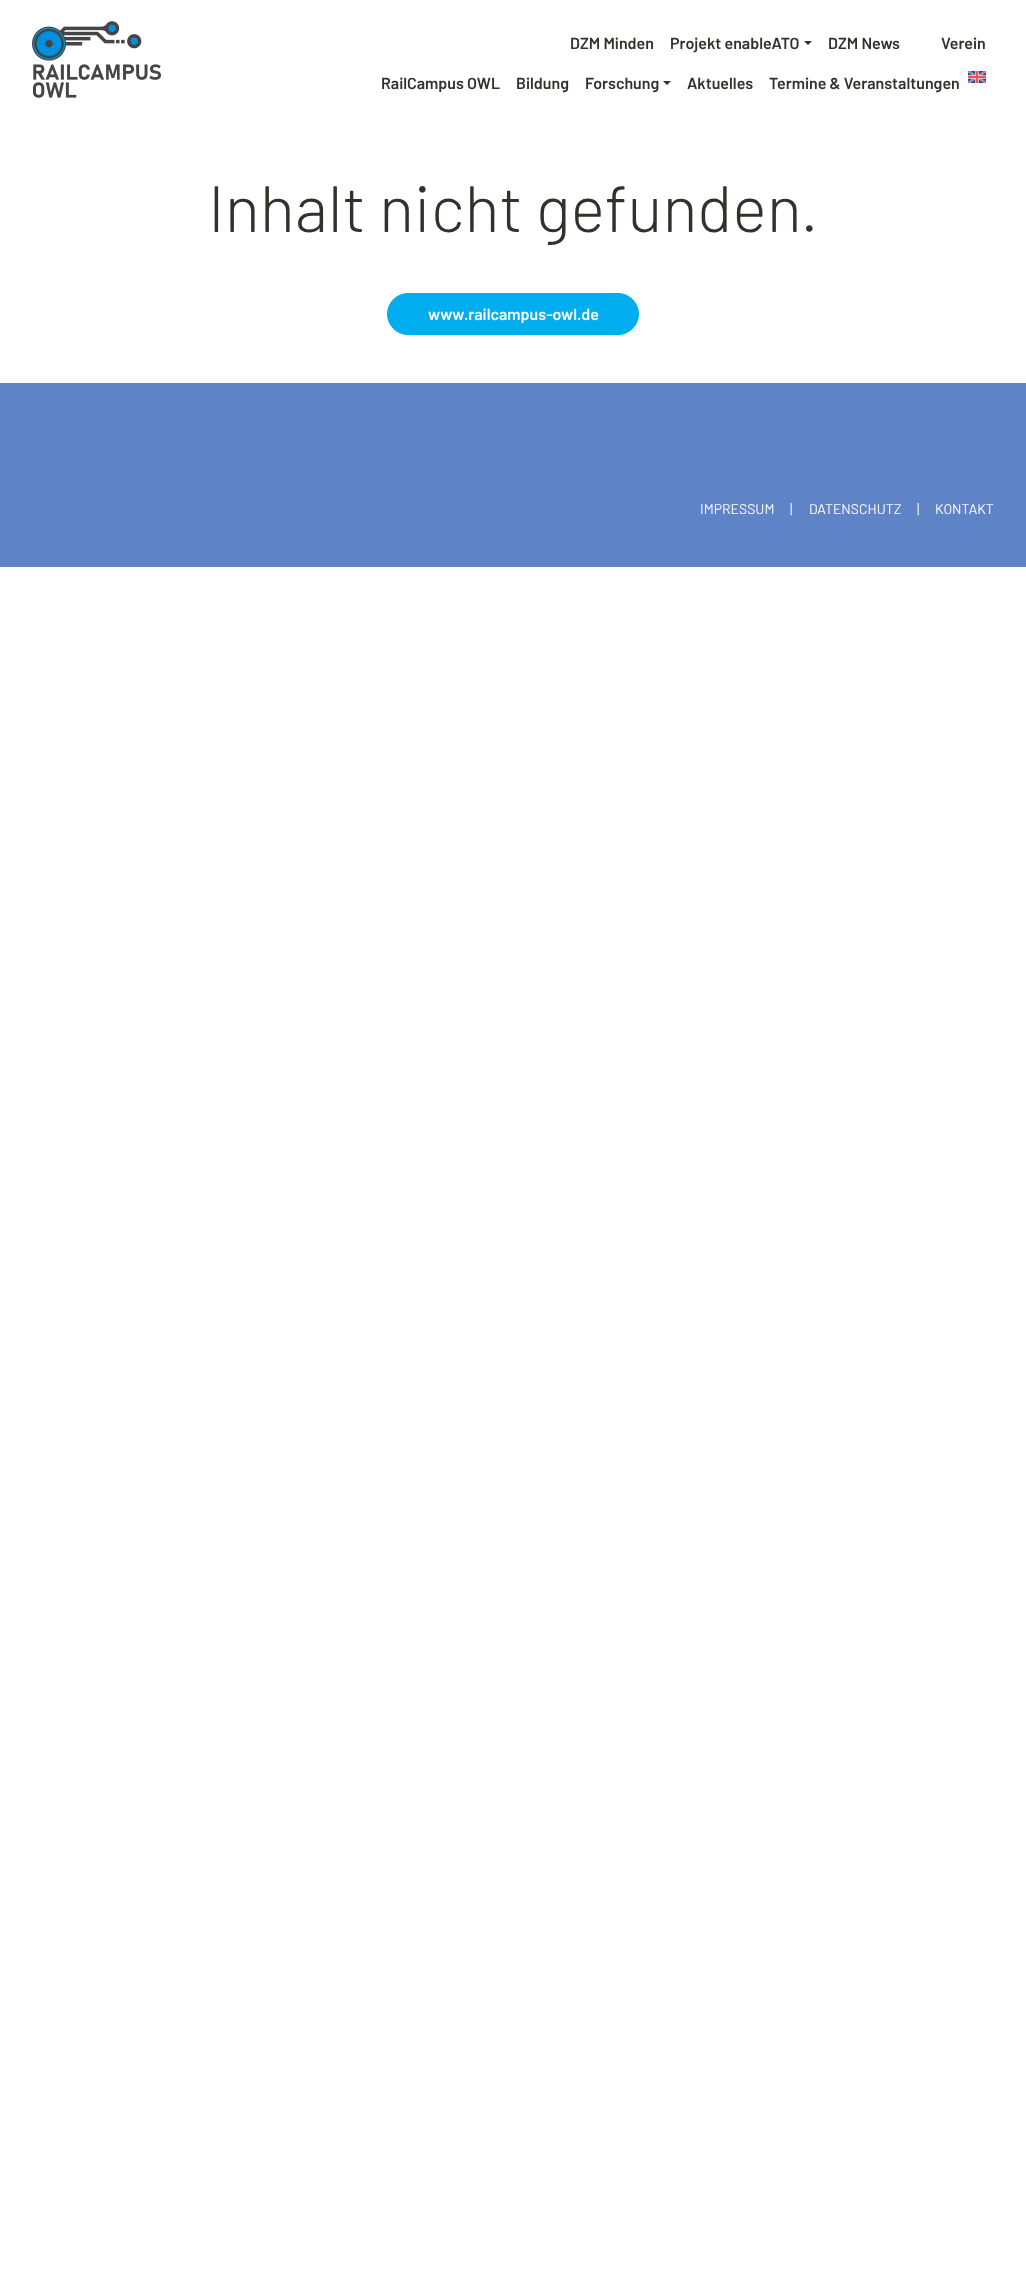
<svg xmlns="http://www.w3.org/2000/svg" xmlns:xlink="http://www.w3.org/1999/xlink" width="1026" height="2270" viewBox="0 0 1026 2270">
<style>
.cls-1{font:600 16px Barlow;fill:#34312a}
.cls-2{font:300 65.25px Barlow;fill:#34312a}
.cls-3{font:600 16px Barlow;fill:#ffffff}
.cls-4{font:14px Barlow;fill:#ffffff}
</style>
<rect width="100%" height="100%" fill="#ffffff"/>
<image xlink:href="image0.png" x="32" y="21" width="129" height="77"/>
<path fill="#34312a" d="M804 41H812L808 45Z"/>
<path fill="#34312a" d="M663 81H671L667 85Z"/>
<image xlink:href="image1.png" x="968" y="71" width="18" height="12"/>
<rect fill="#00adef" stroke="#00adef" x="387.5" y="293.5" width="251" height="41" rx="20.5"/>
<rect fill="#5e83c7" x="0" y="383" width="1026" height="184"/>
<text class="cls-1" x="570" y="49">DZM Minden</text>
<text class="cls-1" x="670" y="49">Projekt enableATO</text>
<text class="cls-1" x="828" y="49">DZM News</text>
<text class="cls-1" x="941" y="49">Verein</text>
<text class="cls-1" x="381" y="89">RailCampus OWL</text>
<text class="cls-1" x="516" y="89">Bildung</text>
<text class="cls-1" x="585" y="89">Forschung</text>
<text class="cls-1" x="687" y="89">Aktuelles</text>
<text class="cls-1" x="769" y="89">Termine &amp; Veranstaltungen</text>
<text class="cls-2" x="208" y="232">Inhalt nicht gefunden.</text>
<text class="cls-3" x="428" y="320">www.railcampus-owl.de</text>
<text class="cls-4" x="700" y="514">IMPRESSUM</text>
<text class="cls-4" x="790" y="514">|</text>
<text class="cls-4" x="809" y="514">DATENSCHUTZ</text>
<text class="cls-4" x="917" y="514">|</text>
<text class="cls-4" x="935" y="514">KONTAKT</text>
</svg>
